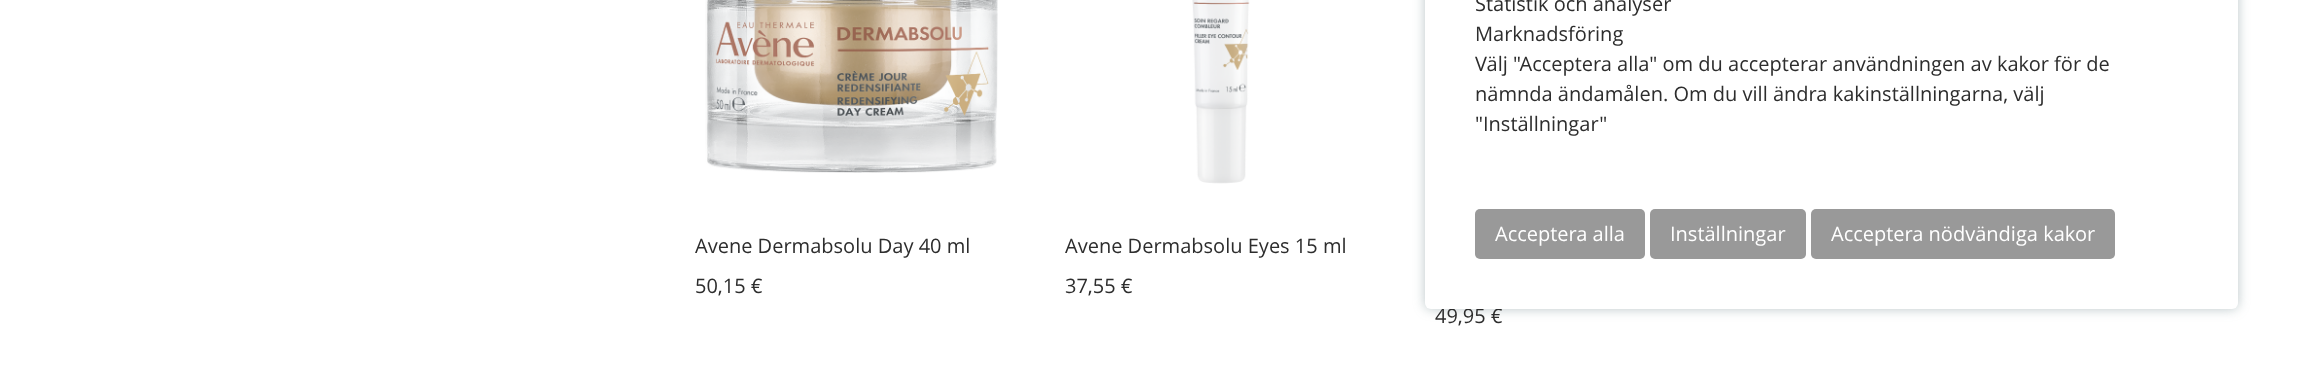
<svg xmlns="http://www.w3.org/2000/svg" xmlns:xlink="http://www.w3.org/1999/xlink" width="2310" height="381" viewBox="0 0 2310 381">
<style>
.cls-1{font:20px Open Sans;fill:#2d2d2d}
.cls-2{font:20px Open Sans;fill:#ffffff}
</style>
<rect width="100%" height="100%" fill="#ffffff"/>
<rect fill="#547478" fill-opacity="0.4" filter="blur(6px)" x="1425" y="-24" width="813" height="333" rx="6"/>
<image xlink:href="image0.png" x="705" y="0" width="293" height="173"/>
<image xlink:href="image1.png" x="1192" y="0" width="58" height="184"/>
<text class="cls-1" x="695" y="253">Avene Dermabsolu Day 40 ml</text>
<text class="cls-1" x="695" y="293">50,15 €</text>
<text class="cls-1" x="1065" y="253">Avene Dermabsolu Eyes 15 ml</text>
<text class="cls-1" x="1065" y="293">37,55 €</text>
<text class="cls-1" x="1435" y="323">49,95 €</text>
<rect fill="#ffffff" x="1425" y="-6" width="813" height="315" rx="6"/>
<text class="cls-1" x="1475" y="131">"Inställningar"</text>
<text class="cls-1" x="1475" y="101">nämnda ändamålen. Om du vill ändra kakinställningarna, välj</text>
<text class="cls-1" x="1475" y="71">Välj "Acceptera alla" om du accepterar användningen av kakor för de</text>
<text class="cls-1" x="1475" y="41">Marknadsföring</text>
<text class="cls-1" x="1475" y="11">Statistik och analyser</text>
<rect fill="#999999" x="1811" y="209" width="304" height="50" rx="5"/>
<text class="cls-2" x="1831" y="241">Acceptera nödvändiga kakor</text>
<rect fill="#999999" x="1650" y="209" width="156" height="50" rx="5"/>
<text class="cls-2" x="1670" y="241">Inställningar</text>
<rect fill="#999999" x="1475" y="209" width="170" height="50" rx="5"/>
<text class="cls-2" x="1495" y="241">Acceptera alla</text>
</svg>
